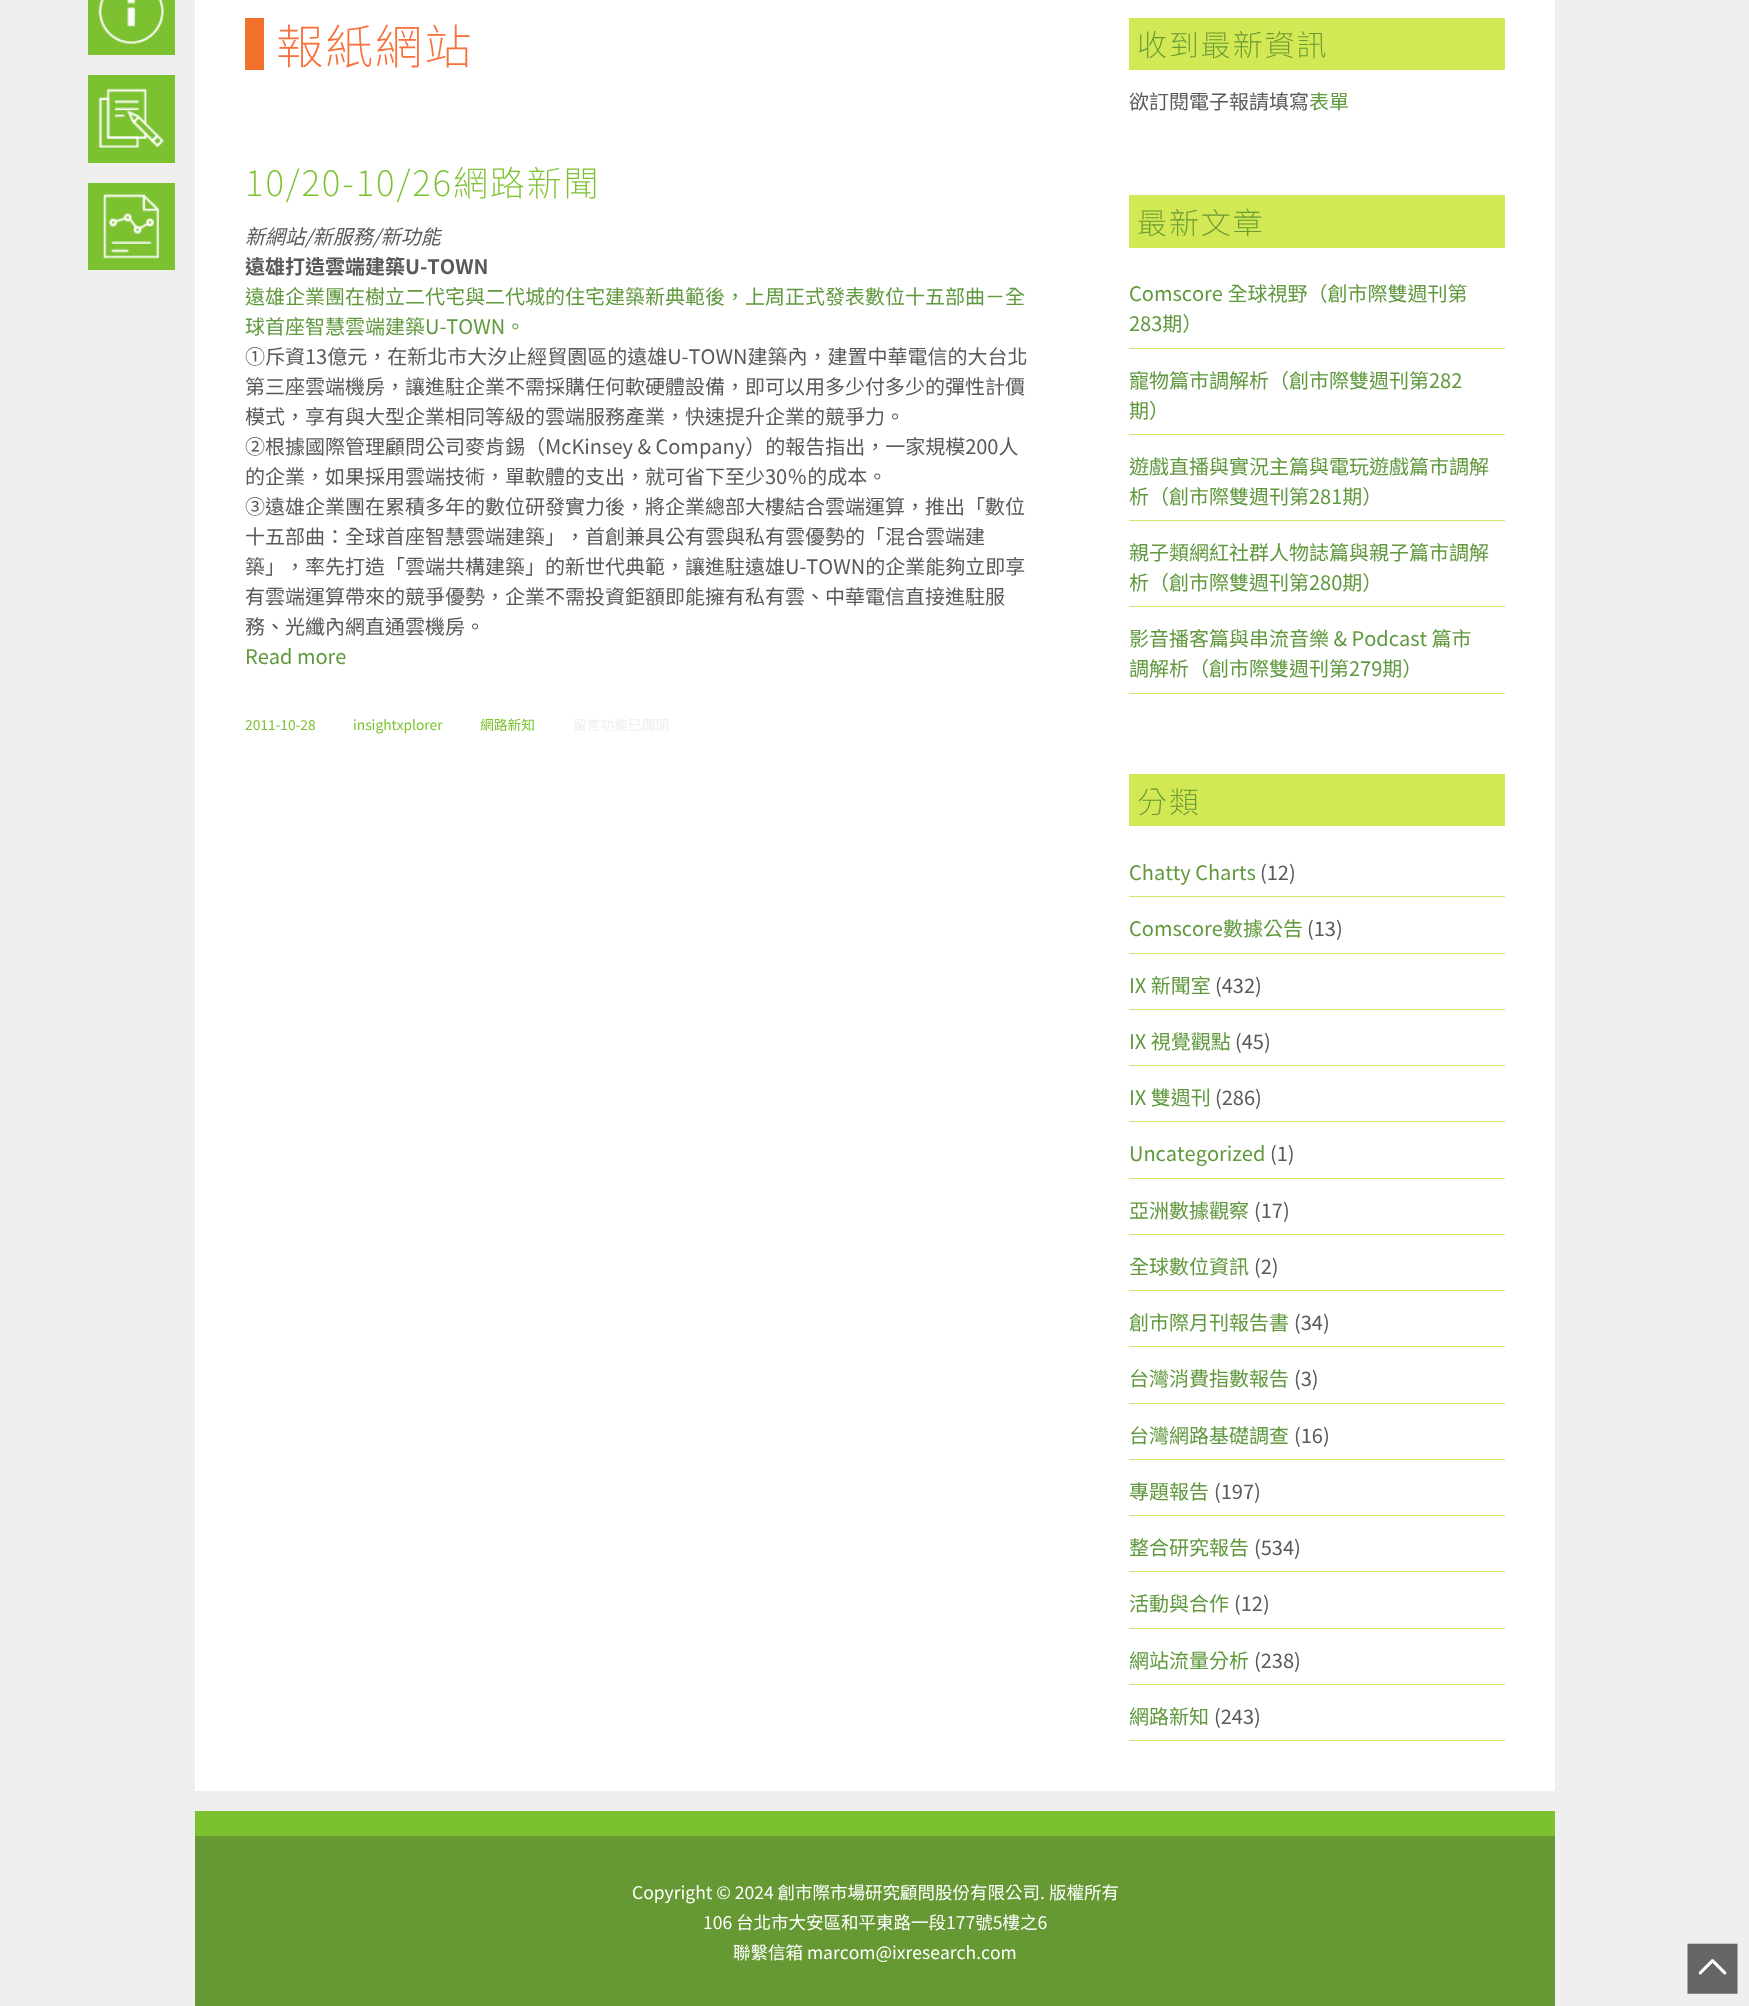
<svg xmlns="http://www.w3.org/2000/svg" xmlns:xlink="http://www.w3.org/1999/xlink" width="1749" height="2006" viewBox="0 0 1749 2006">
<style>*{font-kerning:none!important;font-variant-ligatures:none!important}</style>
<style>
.cls-1{font:200 47.5px Noto Sans TC;letter-spacing:1.9px;fill:#f76f39}
.cls-2{font:200 35px Noto Sans TC;letter-spacing:1.9px;fill:#7bc130}
.cls-3{font:italic 20px Noto Sans TC;fill:#595959}
.cls-4{font:bold 20px Noto Sans TC;fill:#595959}
.cls-5{font:20px Noto Sans TC;fill:#60993d}
.cls-6{font:20px Noto Sans TC;fill:#595959}
.cls-7{font:13.75px Noto Sans TC;fill:#7bc130}
.cls-8{font:13.75px Noto Sans TC;fill:#eeeeee}
.cls-9{font:200 30px Noto Sans TC;letter-spacing:1.9px;fill:#669933}
.cls-10{font:17.5px Noto Sans TC;fill:#ffffff}
</style>
<rect width="100%" height="100%" fill="#efefef"/>
<rect fill="#ffffff" x="195" y="0" width="1360" height="1791"/>
<rect fill="#7bc130" x="88" y="0" width="87" height="55"/>
<image xlink:href="image0.png" x="98" y="0" width="66" height="44"/>
<rect fill="#7bc130" x="88" y="75" width="87" height="88"/>
<image xlink:href="image1.png" x="98" y="88" width="66" height="60"/>
<rect fill="#7bc130" x="88" y="183" width="87" height="87"/>
<image xlink:href="image2.png" x="103" y="193" width="56" height="66"/>
<rect fill="#f2712a" x="245" y="18" width="19" height="52"/>
<rect fill="#d2e854" x="1129" y="18" width="376" height="52"/>
<rect fill="#d2e854" x="1129" y="195" width="376" height="53"/>
<rect fill="#cfe76c" x="1129" y="348" width="376" height="1"/>
<rect fill="#cfe76c" x="1129" y="434" width="376" height="1"/>
<rect fill="#cfe76c" x="1129" y="520" width="376" height="1"/>
<rect fill="#cfe76c" x="1129" y="606" width="376" height="1"/>
<rect fill="#cfe76c" x="1129" y="693" width="376" height="1"/>
<rect fill="#d2e854" x="1129" y="774" width="376" height="52"/>
<rect fill="#cfe76c" x="1129" y="896" width="376" height="1"/>
<rect fill="#cfe76c" x="1129" y="953" width="376" height="1"/>
<rect fill="#cfe76c" x="1129" y="1009" width="376" height="1"/>
<rect fill="#cfe76c" x="1129" y="1065" width="376" height="1"/>
<rect fill="#cfe76c" x="1129" y="1121" width="376" height="1"/>
<rect fill="#cfe76c" x="1129" y="1178" width="376" height="1"/>
<rect fill="#cfe76c" x="1129" y="1234" width="376" height="1"/>
<rect fill="#cfe76c" x="1129" y="1290" width="376" height="1"/>
<rect fill="#cfe76c" x="1129" y="1346" width="376" height="1"/>
<rect fill="#cfe76c" x="1129" y="1403" width="376" height="1"/>
<rect fill="#cfe76c" x="1129" y="1459" width="376" height="1"/>
<rect fill="#cfe76c" x="1129" y="1515" width="376" height="1"/>
<rect fill="#cfe76c" x="1129" y="1571" width="376" height="1"/>
<rect fill="#cfe76c" x="1129" y="1628" width="376" height="1"/>
<rect fill="#cfe76c" x="1129" y="1684" width="376" height="1"/>
<rect fill="#cfe76c" x="1129" y="1740" width="376" height="1"/>
<rect fill="#7bc130" x="195" y="1811" width="1360" height="25"/>
<rect fill="#669933" x="195" y="1836" width="1360" height="170"/>
<image xlink:href="image3.png" x="1687" y="1943" width="51" height="51"/>
<text class="cls-1" x="276" y="64">報紙網站</text>
<text class="cls-2" x="245" y="196">10/20-10/26網路新聞</text>
<text class="cls-3" x="245" y="244">新網站/新服務/新功能</text>
<text class="cls-4" x="245" y="274">遠雄打造雲端建築U-TOWN</text>
<text class="cls-5"><tspan x="245" y="304">遠雄企業團在樹立二代宅與二代城的住宅建築新典範後，上周正式發表數位十五部曲－全</tspan><tspan x="245" y="334">球首座智慧雲端建築U-TOWN。</tspan></text>
<text class="cls-6"><tspan x="245" y="364">①斥資13億元，在新北市大汐止經貿園區的遠雄U-TOWN建築內，建置中華電信的大台北</tspan><tspan x="245" y="394">第三座雲端機房，讓進駐企業不需採購任何軟硬體設備，即可以用多少付多少的彈性計價</tspan><tspan x="245" y="424">模式，享有與大型企業相同等級的雲端服務產業，快速提升企業的競爭力。</tspan><tspan x="245" y="454">②根據國際管理顧問公司麥肯錫（McKinsey &amp; Company）的報告指出，一家規模200人</tspan><tspan x="245" y="484">的企業，如果採用雲端技術，單軟體的支出，就可省下至少30％的成本。</tspan><tspan x="245" y="514">③遠雄企業團在累積多年的數位研發實力後，將企業總部大樓結合雲端運算，推出「數位</tspan><tspan x="245" y="544">十五部曲：全球首座智慧雲端建築」</tspan></text>
<text class="cls-6" x="565" y="544">，首創兼具公有雲與私有雲優勢的「混合雲端建</text>
<text class="cls-6" x="245" y="574">築」</text>
<text class="cls-6" x="285" y="574">，率先打造「雲端共構建築」的新世代典範，讓進駐遠雄U-TOWN的企業能夠立即享</text>
<text class="cls-6"><tspan x="245" y="604">有雲端運算帶來的競爭優勢，企業不需投資鉅額即能擁有私有雲、中華電信直接進駐服</tspan><tspan x="245" y="634">務、光纖內網直通雲機房。</tspan></text>
<text class="cls-5" x="245" y="664">Read more</text>
<text class="cls-7" x="245" y="730">2011-10-28</text>
<text class="cls-7" x="353" y="730">insightxplorer</text>
<text class="cls-7" x="480" y="730">網路新知</text>
<text class="cls-8" x="573" y="730">留言功能已關閉</text>
<text class="cls-9" x="1137" y="56">收到最新資訊</text>
<text class="cls-6" x="1129" y="109">欲訂閱電子報請填寫</text>
<text class="cls-5" x="1309" y="109">表單</text>
<text class="cls-9" x="1137" y="234">最新文章</text>
<text class="cls-5"><tspan x="1129" y="301">Comscore 全球視野（創市際雙週刊第</tspan><tspan x="1129" y="331">283期）</tspan></text>
<text class="cls-5"><tspan x="1129" y="388">寵物篇市調解析（創市際雙週刊第282</tspan><tspan x="1129" y="418">期）</tspan></text>
<text class="cls-5"><tspan x="1129" y="474">遊戲直播與實況主篇與電玩遊戲篇市調解</tspan><tspan x="1129" y="504">析（創市際雙週刊第281期）</tspan></text>
<text class="cls-5"><tspan x="1129" y="560">親子類網紅社群人物誌篇與親子篇市調解</tspan><tspan x="1129" y="590">析（創市際雙週刊第280期）</tspan></text>
<text class="cls-5"><tspan x="1129" y="646">影音播客篇與串流音樂 &amp; Podcast 篇市</tspan><tspan x="1129" y="676">調解析（創市際雙週刊第279期）</tspan></text>
<text class="cls-9" x="1137" y="813">分類</text>
<text class="cls-5" x="1129" y="880">Chatty Charts</text>
<text class="cls-6" x="1260" y="880">(12)</text>
<text class="cls-5" x="1129" y="936">Comscore數據公告</text>
<text class="cls-6" x="1307" y="936">(13)</text>
<text class="cls-5" x="1129" y="993">IX 新聞室</text>
<text class="cls-6" x="1215" y="993">(432)</text>
<text class="cls-5" x="1129" y="1049">IX 視覺觀點</text>
<text class="cls-6" x="1235" y="1049">(45)</text>
<text class="cls-5" x="1129" y="1105">IX 雙週刊</text>
<text class="cls-6" x="1215" y="1105">(286)</text>
<text class="cls-5" x="1129" y="1161">Uncategorized</text>
<text class="cls-6" x="1270" y="1161">(1)</text>
<text class="cls-5" x="1129" y="1218">亞洲數據觀察</text>
<text class="cls-6" x="1254" y="1218">(17)</text>
<text class="cls-5" x="1129" y="1274">全球數位資訊</text>
<text class="cls-6" x="1254" y="1274">(2)</text>
<text class="cls-5" x="1129" y="1330">創市際月刊報告書</text>
<text class="cls-6" x="1294" y="1330">(34)</text>
<text class="cls-5" x="1129" y="1386">台灣消費指數報告</text>
<text class="cls-6" x="1294" y="1386">(3)</text>
<text class="cls-5" x="1129" y="1443">台灣網路基礎調查</text>
<text class="cls-6" x="1294" y="1443">(16)</text>
<text class="cls-5" x="1129" y="1499">專題報告</text>
<text class="cls-6" x="1214" y="1499">(197)</text>
<text class="cls-5" x="1129" y="1555">整合研究報告</text>
<text class="cls-6" x="1254" y="1555">(534)</text>
<text class="cls-5" x="1129" y="1611">活動與合作</text>
<text class="cls-6" x="1234" y="1611">(12)</text>
<text class="cls-5" x="1129" y="1668">網站流量分析</text>
<text class="cls-6" x="1254" y="1668">(238)</text>
<text class="cls-5" x="1129" y="1724">網路新知</text>
<text class="cls-6" x="1214" y="1724">(243)</text>
<text class="cls-10" x="632" y="1899">Copyright © 2024 創市際市場研究顧問股份有限公司. 版權所有</text>
<text class="cls-10" x="703" y="1929">106 台北市大安區和平東路一段177號5樓之6</text>
<text class="cls-10" x="733" y="1959">聯繫信箱 marcom@ixresearch.com</text>
</svg>
